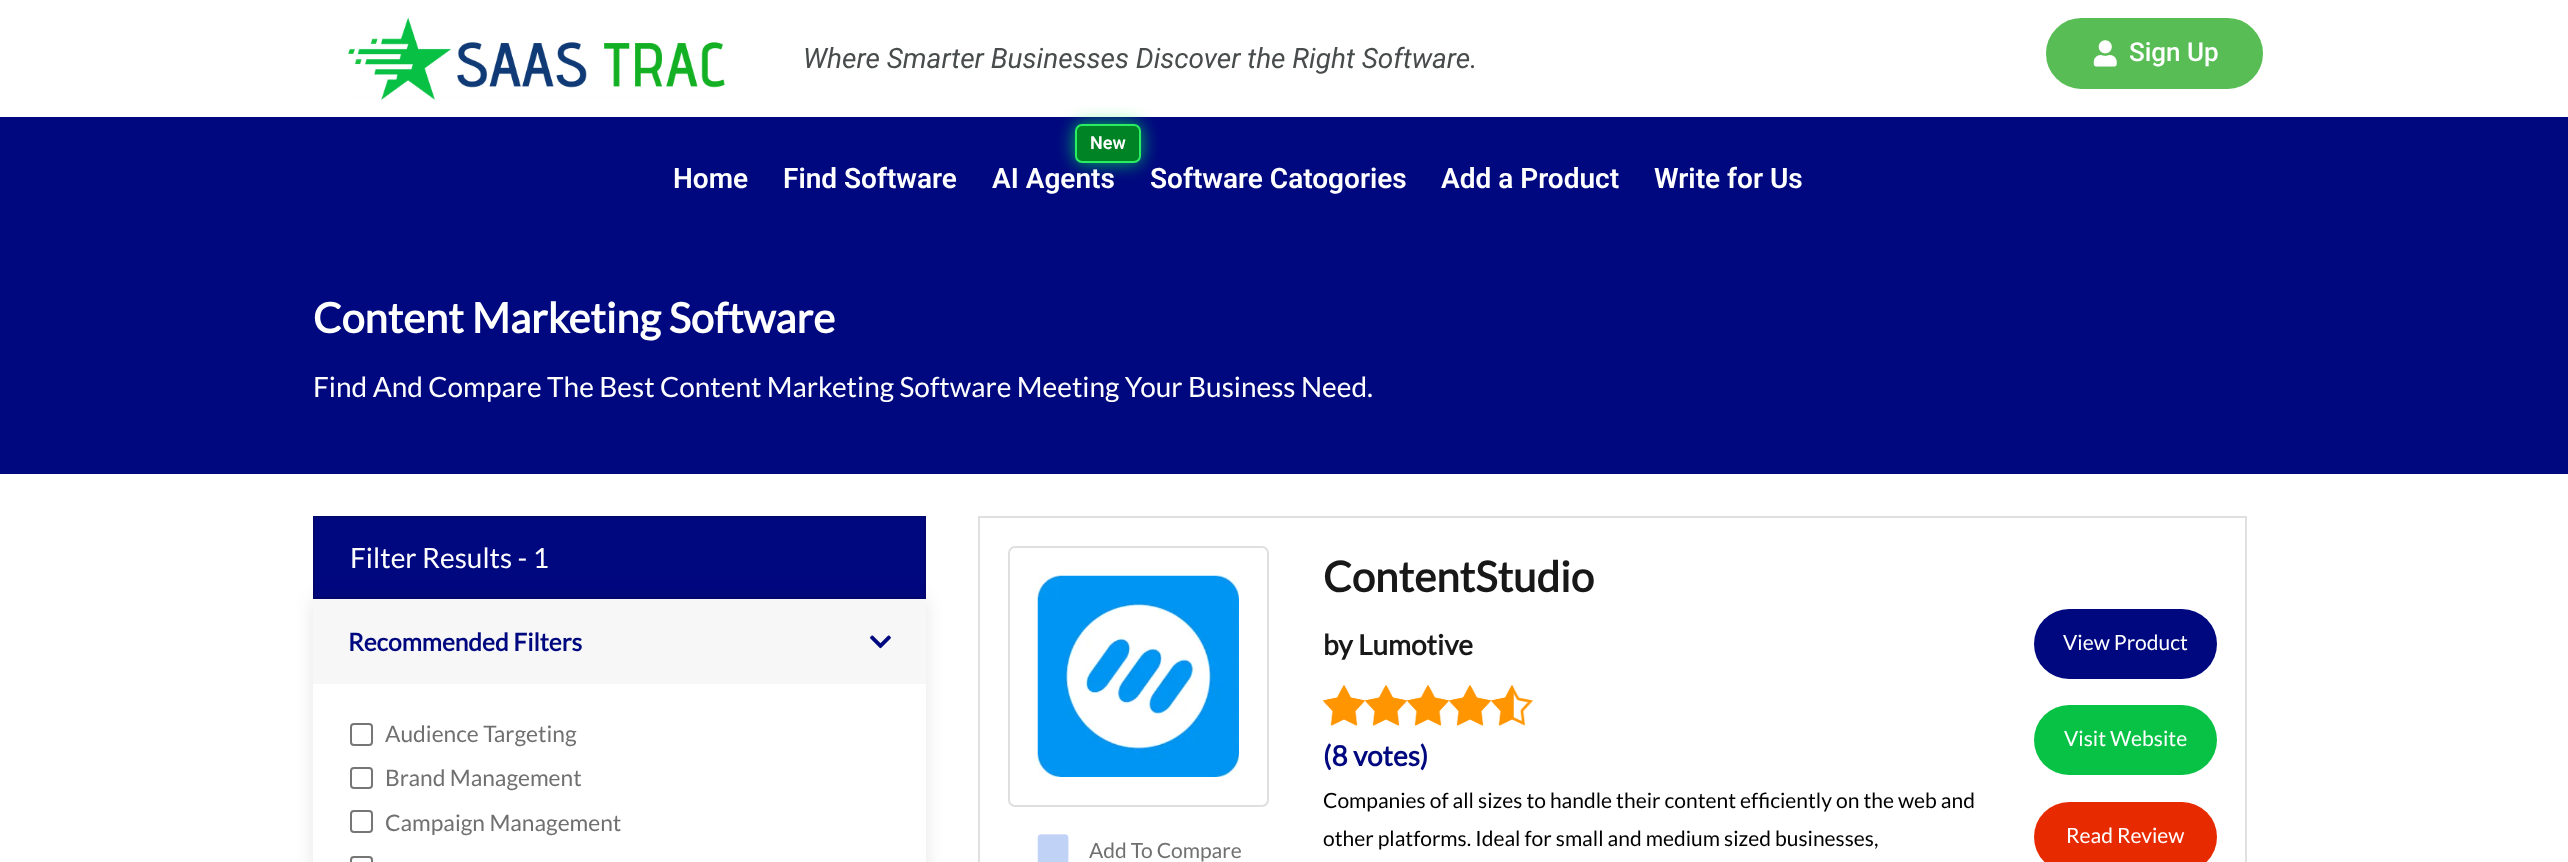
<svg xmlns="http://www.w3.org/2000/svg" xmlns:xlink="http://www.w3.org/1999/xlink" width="2568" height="862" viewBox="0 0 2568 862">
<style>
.cls-1{font:italic 28px Roboto;fill:#484c4d}
.cls-2{font:500 26px Roboto;fill:#ffffff}
.cls-3{font:600 28px Roboto;fill:#ffffff}
.cls-4{font:600 18px Roboto;fill:#ffffff}
.cls-5{font:bold 41.6px Lato;fill:#ffffff}
.cls-6{font:28px Lato;fill:#ffffff}
.cls-7{font:bold 24.5px Lato;fill:#00087f}
.cls-8{font:22.75px Lato;fill:#707070}
.cls-9{font:bold 42px Lato;fill:#181818}
.cls-10{font:bold 28px Lato;fill:#181818}
.cls-11{font:bold 28px Lato;fill:#00087f}
.cls-12{font:21px Lato;fill:#000000}
.cls-13{font:21px Lato;fill:#ffffff}
.cls-14{font:21px Lato;fill:#707070}
</style>
<rect width="100%" height="100%" fill="#ffffff"/>
<image xlink:href="image0.png" x="348" y="17" width="377" height="83"/>
<rect fill="#58bd55" stroke="#58bd55" stroke-width="2" x="2047" y="19" width="215" height="69" rx="34.5"/>
<image xlink:href="image1.png" x="2093" y="40" width="24" height="27"/>
<rect fill="#00087f" x="0" y="117" width="2568" height="357"/>
<rect fill="#00ff48" fill-opacity="0.71" filter="blur(9px)" x="1075" y="124" width="66" height="39" rx="7"/>
<rect fill="#008325" stroke="#2aee62" stroke-width="2" x="1076" y="125" width="64" height="37" rx="6"/>
<rect fill="#00087f" stroke="#00076f" stroke-width="2" x="314" y="517" width="611" height="81"/>
<rect fill="#000000" fill-opacity="0.1" filter="blur(9px)" x="313" y="599" width="613" height="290"/>
<rect fill="#ffffff" x="313" y="684" width="613" height="178"/>
<rect fill="#f7f7f7" x="313" y="599" width="613" height="85"/>
<image xlink:href="image2.png" x="870" y="635" width="21" height="14"/>
<rect fill="none" stroke="#767676" stroke-width="2" x="351" y="724" width="21" height="21" rx="3"/>
<rect fill="none" stroke="#767676" stroke-width="2" x="351" y="768" width="21" height="20" rx="3"/>
<rect fill="none" stroke="#767676" stroke-width="2" x="351" y="811" width="21" height="21" rx="3"/>
<rect fill="none" stroke="#767676" stroke-width="2" x="351" y="857" width="21" height="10" rx="3"/>
<path fill="#dfdfdf" d="M978 516H2247L2245 518H980Z"/>
<path fill="#000000" fill-opacity="0.12" d="M2247 516V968H2245V518Z"/>
<path fill="#000000" fill-opacity="0.12" d="M978 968V516L980 518V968Z"/>
<image xlink:href="image3.png" x="1323" y="685" width="210" height="41"/>
<image xlink:href="image4.png" x="1323" y="685" width="191" height="41"/>
<rect fill="#00087f" x="2034" y="609" width="183" height="70" rx="35"/>
<rect fill="#08c245" x="2034" y="705" width="183" height="70" rx="35"/>
<rect fill="#e82a00" x="2034" y="802" width="183" height="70" rx="35"/>
<rect fill="none" stroke="#dfdfdf" stroke-width="2" x="1009" y="547" width="259" height="259" rx="6"/>
<image xlink:href="image5.png" x="1037" y="575" width="202" height="202"/>
<image xlink:href="image6.png" x="1037" y="834" width="32" height="28"/>
<text class="cls-1" x="803" y="68">Where Smarter Businesses Discover the Right Software.</text>
<text class="cls-2" x="2129" y="61">Sign Up</text>
<text class="cls-3" x="673" y="188">Home</text>
<text class="cls-3" x="783" y="188">Find Software</text>
<text class="cls-4" x="1090" y="149">New</text>
<text class="cls-3" x="992" y="188">AI Agents</text>
<text class="cls-3" x="1150" y="188">Software Catogories</text>
<text class="cls-3" x="1441" y="188">Add a Product</text>
<text class="cls-3" x="1654" y="188">Write for Us</text>
<text class="cls-5" x="313" y="333">Content Marketing Software</text>
<text class="cls-6" x="313" y="397">Find And Compare The Best Content Marketing Software Meeting Your Business Need.</text>
<text class="cls-6" x="350" y="568">Filter Results - 1</text>
<text class="cls-7" x="348" y="651">Recommended Filters</text>
<text class="cls-8"><tspan x="385" y="742">Audience Targeting</tspan><tspan x="385" y="786">Brand Management</tspan><tspan x="385" y="831">Campaign Management</tspan></text>
<text class="cls-9" x="1323" y="592">ContentStudio</text>
<text class="cls-10" x="1323" y="655">by Lumotive</text>
<text class="cls-11" x="1323" y="766">(8 votes)</text>
<text class="cls-12"><tspan x="1323" y="808">Companies of all sizes to handle their content efficiently on the web and</tspan><tspan x="1323" y="846">other platforms. Ideal for small and medium sized businesses,</tspan></text>
<text class="cls-13" x="2063" y="650">View Product</text>
<text class="cls-13" x="2064" y="746">Visit Website</text>
<text class="cls-13" x="2066" y="843">Read Review</text>
<text class="cls-14" x="1089" y="858">Add To Compare</text>
</svg>
